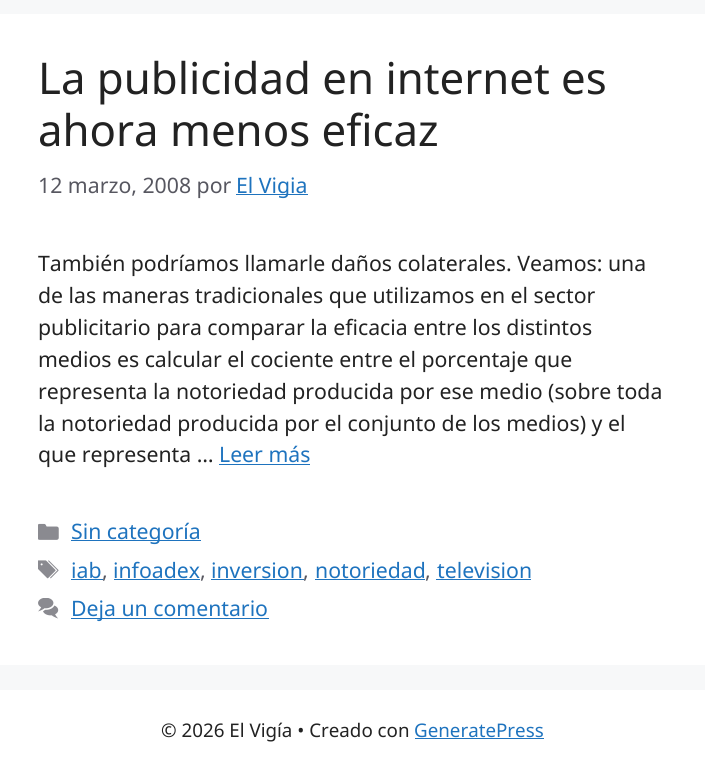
import math
import cairo



def draw_image(context, path, x, y, w, h):
    context.save()
    context.set_source_surface(cairo.ImageSurface.create_from_png(path), x, y)
    context.rectangle(x, y, w, h)
    context.fill()
    context.restore()


def draw(context):
    context.set_source_rgb(247 / 255, 248 / 255, 249 / 255)
    context.paint()
    context.set_source_rgb(1, 1, 1)
    context.rectangle(0, 14, 705, 651)
    context.fill()
    context.set_source_rgb(30 / 255, 115 / 255, 190 / 255)
    context.rectangle(236, 194, 72, 1)
    context.fill()
    context.rectangle(219, 464, 91, 1)
    context.fill()
    draw_image(context, "images/1.png", 38, 523, 21, 17)
    context.rectangle(71, 540, 130, 1)
    context.fill()
    draw_image(context, "images/2.png", 38, 560, 21, 19)
    context.rectangle(71, 579, 32, 1)
    context.fill()
    context.rectangle(114, 579, 86, 1)
    context.fill()
    context.rectangle(211, 579, 93, 1)
    context.fill()
    context.rectangle(315, 579, 110, 1)
    context.fill()
    context.rectangle(436, 579, 95, 1)
    context.fill()
    draw_image(context, "images/3.png", 38, 598, 21, 21)
    context.rectangle(71, 618, 198, 1)
    context.fill()
    context.set_source_rgb(1, 1, 1)
    context.rectangle(0, 690, 705, 78)
    context.fill()
    context.set_source_rgb(30 / 255, 115 / 255, 190 / 255)
    context.rectangle(415, 738, 129, 1)
    context.fill()
    context.select_font_face("Noto Sans")
    context.set_font_size(43.75)
    context.set_source_rgb(34 / 255, 34 / 255, 34 / 255)
    context.move_to(38, 94)
    context.show_text("La publicidad en internet es")
    context.move_to(38, 146)
    context.show_text("ahora menos eficaz")
    context.set_font_size(21.25)
    context.set_source_rgb(87 / 255, 87 / 255, 96 / 255)
    context.move_to(38, 193)
    context.show_text("12 marzo, 2008 por")
    context.set_source_rgb(30 / 255, 115 / 255, 190 / 255)
    context.move_to(236, 193)
    context.show_text("El Vigia")
    context.set_source_rgb(34 / 255, 34 / 255, 34 / 255)
    context.move_to(38, 271)
    context.show_text("También podríamos llamarle daños colaterales. Veamos: una")
    context.move_to(38, 303)
    context.show_text("de las maneras tradicionales que utilizamos en el sector")
    context.move_to(38, 335)
    context.show_text("publicitario para comparar la eficacia entre los distintos")
    context.move_to(38, 367)
    context.show_text("medios es calcular el cociente entre el porcentaje que")
    context.move_to(38, 399)
    context.show_text("representa la notoriedad producida por ese medio (sobre toda")
    context.move_to(38, 431)
    context.show_text("la notoriedad producida por el conjunto de los medios) y el")
    context.move_to(38, 462)
    context.show_text("que representa …")
    context.set_source_rgb(30 / 255, 115 / 255, 190 / 255)
    context.move_to(219, 462)
    context.show_text("Leer más")
    context.move_to(71, 539)
    context.show_text("Sin categoría")
    context.move_to(71, 578)
    context.show_text("iab")
    context.set_source_rgb(87 / 255, 87 / 255, 96 / 255)
    context.move_to(102, 578)
    context.show_text(",")
    context.set_source_rgb(30 / 255, 115 / 255, 190 / 255)
    context.move_to(113, 578)
    context.show_text("infoadex")
    context.set_source_rgb(87 / 255, 87 / 255, 96 / 255)
    context.move_to(200, 578)
    context.show_text(",")
    context.set_source_rgb(30 / 255, 115 / 255, 190 / 255)
    context.move_to(211, 578)
    context.show_text("inversion")
    context.set_source_rgb(87 / 255, 87 / 255, 96 / 255)
    context.move_to(303, 578)
    context.show_text(",")
    context.set_source_rgb(30 / 255, 115 / 255, 190 / 255)
    context.move_to(315, 578)
    context.show_text("notoriedad")
    context.set_source_rgb(87 / 255, 87 / 255, 96 / 255)
    context.move_to(425, 578)
    context.show_text(",")
    context.set_source_rgb(30 / 255, 115 / 255, 190 / 255)
    context.move_to(437, 578)
    context.show_text("television")
    context.move_to(71, 616)
    context.show_text("Deja un comentario")
    context.set_font_size(18.75)
    context.set_source_rgb(34 / 255, 34 / 255, 34 / 255)
    context.move_to(161, 737)
    context.show_text("© 2026 El Vigía • Creado con")
    context.set_source_rgb(30 / 255, 115 / 255, 190 / 255)
    context.move_to(414, 737)
    context.show_text("GeneratePress")


surface = cairo.ImageSurface(cairo.Format.RGB24, 705, 768)
context = cairo.Context(surface)
options = cairo.FontOptions()
options.set_hint_metrics(cairo.HintMetrics.OFF)
options.set_hint_style(cairo.HintStyle.NONE)
context.set_font_options(options)
context.set_miter_limit(4)
draw(context)
surface.write_to_png("out.png")
